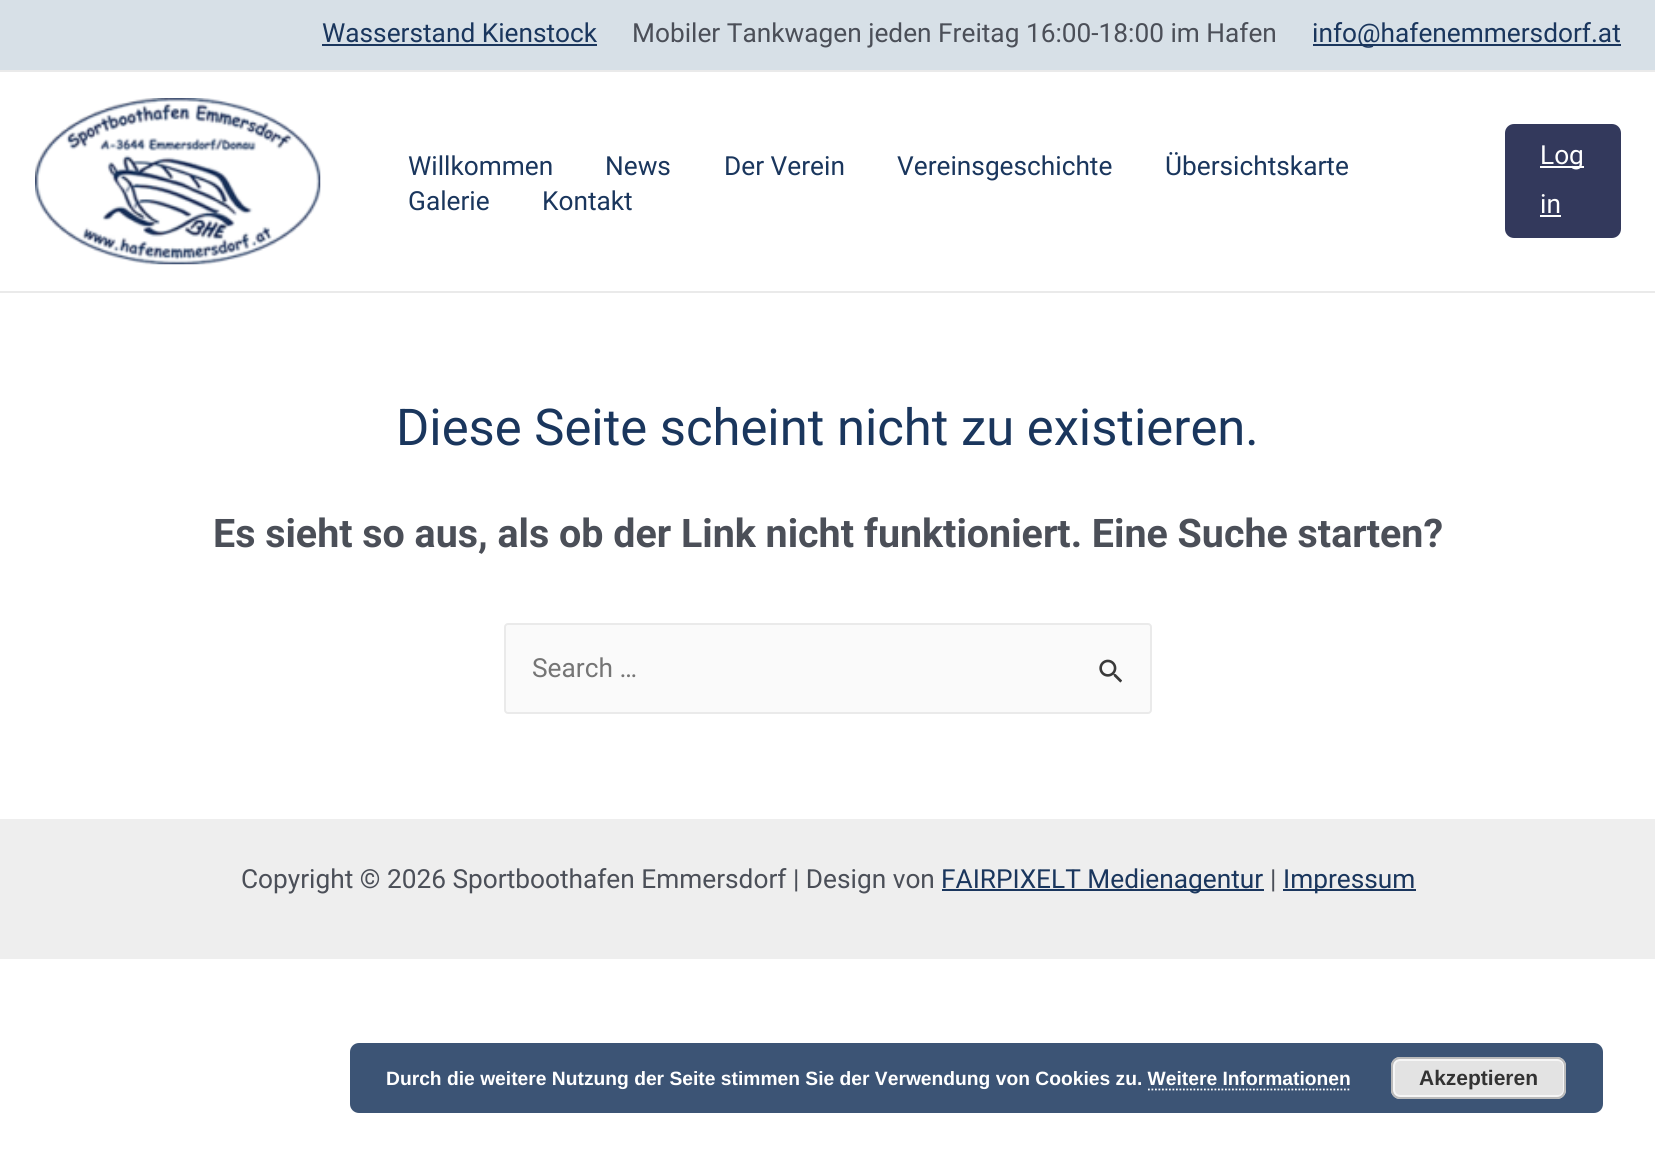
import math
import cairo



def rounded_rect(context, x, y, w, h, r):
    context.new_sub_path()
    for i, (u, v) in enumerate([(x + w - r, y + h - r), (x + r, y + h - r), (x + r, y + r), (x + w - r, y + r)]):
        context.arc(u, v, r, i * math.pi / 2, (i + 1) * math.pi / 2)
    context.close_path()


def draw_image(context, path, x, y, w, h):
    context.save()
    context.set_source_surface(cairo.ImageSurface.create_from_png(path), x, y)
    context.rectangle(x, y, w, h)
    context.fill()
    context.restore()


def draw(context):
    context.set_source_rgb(1, 1, 1)
    context.paint()
    context.set_source_rgb(215 / 255, 224 / 255, 231 / 255)
    context.rectangle(0, 0, 1655, 70)
    context.fill()
    context.set_source_rgb(234 / 255, 234 / 255, 234 / 255)
    context.rectangle(0, 70, 1655, 2)
    context.fill()
    context.set_source_rgb(26 / 255, 54 / 255, 93 / 255)
    context.rectangle(322, 44, 275, 2)
    context.fill()
    context.rectangle(1313, 44, 308, 2)
    context.fill()
    context.set_source_rgb(234 / 255, 234 / 255, 234 / 255)
    context.rectangle(0, 291, 1655, 2)
    context.fill()
    draw_image(context, "images/1.png", 35, 98, 286, 167)
    context.set_source_rgb(51 / 255, 57 / 255, 92 / 255)
    rounded_rect(context, 1505, 124, 116, 114, 9)
    context.fill()
    context.set_source_rgb(1, 1, 1)
    context.rectangle(1540, 166, 44, 2)
    context.fill()
    context.rectangle(1540, 215, 21, 2)
    context.fill()
    context.set_source_rgb(250 / 255, 250 / 255, 250 / 255)
    rounded_rect(context, 505, 624, 646, 89, 3)
    context.fill_preserve()
    context.set_source_rgb(234 / 255, 234 / 255, 234 / 255)
    context.stroke()
    draw_image(context, "images/2.png", 1099, 659, 23, 24)
    context.set_source_rgb(238 / 255, 238 / 255, 238 / 255)
    context.rectangle(0, 819, 1655, 140)
    context.fill()
    context.set_source_rgb(26 / 255, 54 / 255, 93 / 255)
    context.rectangle(942, 889, 322, 2)
    context.fill()
    context.rectangle(1283, 889, 133, 2)
    context.fill()
    context.set_source_rgb(60 / 255, 84 / 255, 117 / 255)
    rounded_rect(context, 350, 1043, 1253, 70, 9)
    context.fill()
    context.set_source_rgb(227 / 255, 227 / 255, 227 / 255)
    rounded_rect(context, 1391, 1057, 175, 42, 9)
    context.fill()
    rounded_rect(context, 1394, 1060, 170, 36, 6)
    context.set_source_rgb(246 / 255, 246 / 255, 246 / 255)
    context.stroke()
    rounded_rect(context, 1392, 1058, 173, 40, 8)
    context.set_source_rgb(187 / 255, 187 / 255, 187 / 255)
    context.stroke()
    context.new_path()
    context.move_to(1148, 1089.5)
    context.line_to(1351, 1089.5)
    context.set_source_rgb(1, 1, 1)
    context.set_line_width(1.8)
    context.set_dash([1.75, 1.75])
    context.stroke()
    context.select_font_face("Roboto")
    context.set_font_size(26.25)
    context.set_source_rgb(26 / 255, 54 / 255, 93 / 255)
    context.move_to(322, 42)
    context.show_text("Wasserstand Kienstock")
    context.set_source_rgb(75 / 255, 79 / 255, 88 / 255)
    context.move_to(632, 42)
    context.show_text("Mobiler Tankwagen jeden Freitag 16:00-18:00 im Hafen")
    context.set_source_rgb(26 / 255, 54 / 255, 93 / 255)
    context.move_to(1312, 42)
    context.show_text("info@hafenemmersdorf.at")
    context.move_to(408, 175)
    context.show_text("Willkommen")
    context.move_to(605, 175)
    context.show_text("News")
    context.move_to(724, 175)
    context.show_text("Der Verein")
    context.move_to(897, 175)
    context.show_text("Vereinsgeschichte")
    context.move_to(1165, 175)
    context.show_text("Übersichtskarte")
    context.move_to(408, 210)
    context.show_text("Galerie")
    context.move_to(542, 210)
    context.show_text("Kontakt")
    context.set_source_rgb(1, 1, 1)
    context.move_to(1540, 164)
    context.show_text("Log")
    context.move_to(1540, 213)
    context.show_text("in")
    context.set_font_size(50.75)
    context.set_source_rgb(26 / 255, 54 / 255, 93 / 255)
    context.move_to(396, 445)
    context.show_text("Diese Seite scheint nicht zu existieren.")
    context.select_font_face("Roboto", cairo.FontSlant.NORMAL, cairo.FontWeight.BOLD)
    context.set_font_size(39.4)
    context.set_source_rgb(75 / 255, 79 / 255, 88 / 255)
    context.move_to(213, 547)
    context.show_text("Es sieht so aus, als ob der Link nicht funktioniert. Eine Suche starten?")
    context.select_font_face("Roboto")
    context.set_font_size(26.25)
    context.set_source_rgb(117 / 255, 117 / 255, 117 / 255)
    context.move_to(532, 677)
    context.show_text("Search …")
    context.set_source_rgb(75 / 255, 79 / 255, 88 / 255)
    context.move_to(241, 888)
    context.show_text("Copyright © 2026 Sportboothafen Emmersdorf | Design von")
    context.set_source_rgb(26 / 255, 54 / 255, 93 / 255)
    context.move_to(941, 888)
    context.show_text("FAIRPIXELT Medienagentur")
    context.set_source_rgb(75 / 255, 79 / 255, 88 / 255)
    context.move_to(1270, 888)
    context.show_text("|")
    context.set_source_rgb(26 / 255, 54 / 255, 93 / 255)
    context.move_to(1283, 888)
    context.show_text("Impressum")
    context.select_font_face("Liberation Sans", cairo.FontSlant.NORMAL, cairo.FontWeight.BOLD)
    context.set_font_size(19.25)
    context.set_source_rgb(1, 1, 1)
    context.move_to(386, 1085)
    context.show_text("Durch die weitere Nutzung der Seite stimmen Sie der Verwendung von Cookies zu. Weitere Informationen")
    context.set_font_size(21)
    context.set_source_rgb(51 / 255, 51 / 255, 51 / 255)
    context.move_to(1419, 1085)
    context.show_text("Akzeptieren")


surface = cairo.ImageSurface(cairo.Format.RGB24, 1655, 1165)
context = cairo.Context(surface)
options = cairo.FontOptions()
options.set_hint_metrics(cairo.HintMetrics.OFF)
options.set_hint_style(cairo.HintStyle.NONE)
context.set_font_options(options)
context.set_miter_limit(4)
draw(context)
surface.write_to_png("out.png")
